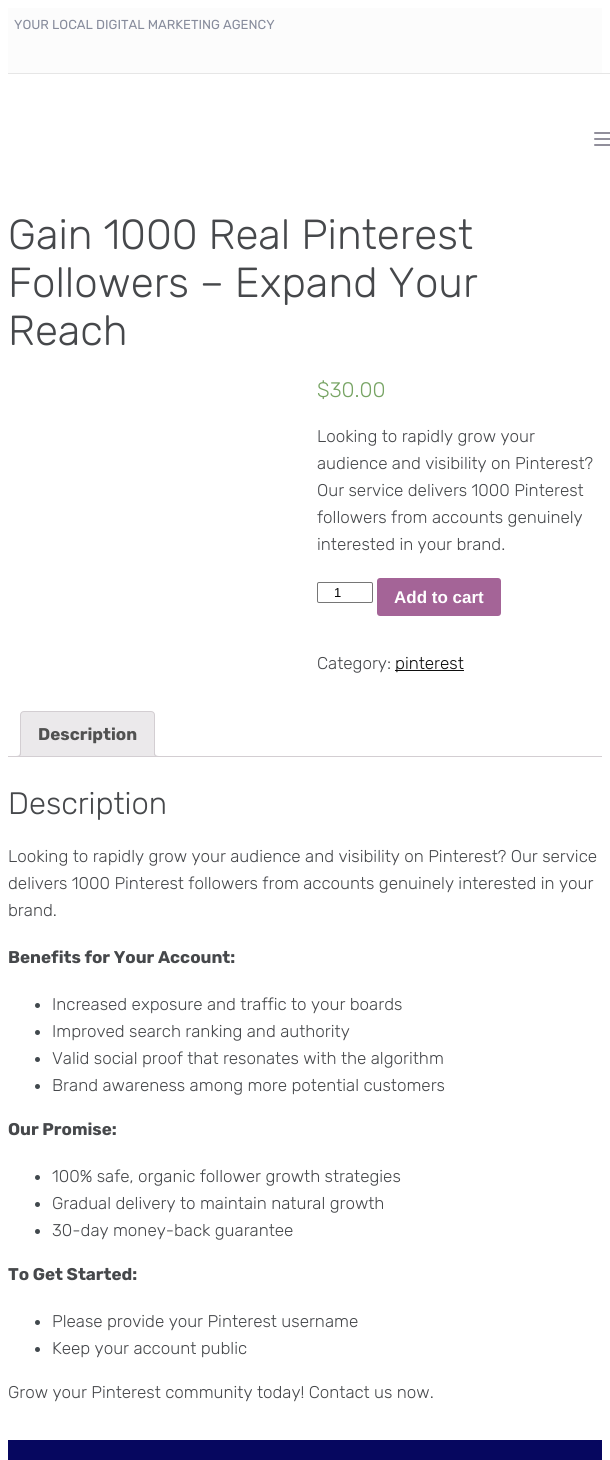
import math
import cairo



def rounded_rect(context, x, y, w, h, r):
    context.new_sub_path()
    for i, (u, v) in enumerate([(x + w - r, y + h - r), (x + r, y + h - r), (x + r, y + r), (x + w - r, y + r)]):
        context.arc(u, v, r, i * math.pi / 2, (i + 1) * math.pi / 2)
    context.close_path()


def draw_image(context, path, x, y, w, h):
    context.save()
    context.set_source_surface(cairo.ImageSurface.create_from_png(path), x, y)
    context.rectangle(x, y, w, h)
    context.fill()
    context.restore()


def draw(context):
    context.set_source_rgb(1, 1, 1)
    context.paint()
    context.set_source_rgb(252 / 255, 252 / 255, 252 / 255)
    context.rectangle(8, 8, 594, 65)
    context.fill()
    context.set_source_rgb(230 / 255, 230 / 255, 230 / 255)
    context.rectangle(8, 73, 602, 1)
    context.fill()
    draw_image(context, "images/1.png", 594, 132, 16, 14)
    rounded_rect(context, 317.5, 582.5, 55, 20, 1.5)
    context.set_source_rgb(118 / 255, 118 / 255, 118 / 255)
    context.set_line_width(1)
    context.stroke()
    context.set_source_rgb(164 / 255, 100 / 255, 151 / 255)
    rounded_rect(context, 377, 578, 124, 38, 3)
    context.fill()
    context.set_source_rgb(14 / 255, 14 / 255, 14 / 255)
    context.rectangle(395, 670, 69, 1)
    context.fill()
    context.set_source_rgb(235 / 255, 233 / 255, 235 / 255)
    context.new_path()
    context.move_to(24, 711.5)
    context.line_to(151, 711.5)
    context.curve_to(153, 711.5, 154.5, 713, 154.5, 715)
    context.line_to(154.5, 756.5)
    context.line_to(20.5, 756.5)
    context.line_to(20.5, 715)
    context.curve_to(20.5, 713, 22, 711.5, 24, 711.5)
    context.close_path()
    context.fill_preserve()
    context.set_source_rgb(211 / 255, 206 / 255, 210 / 255)
    context.stroke()
    context.save()
    context.rectangle(8, 711, 594, 46)
    context.clip()
    context.set_source_rgb(235 / 255, 233 / 255, 235 / 255)
    context.new_path()
    context.move_to(18, 757)
    context.line_to(18, 759)
    context.curve_to(21.5, 759, 23, 757.5, 23, 754)
    context.line_to(21, 754)
    context.curve_to(20.5, 755.5, 19.5, 756.5, 18, 757)
    context.close_path()
    context.fill()
    context.restore()
    context.set_fill_rule(cairo.FillRule.EVEN_ODD)
    context.new_path()
    context.move_to(16, 752)
    context.line_to(21, 752)
    context.curve_to(21, 755.5, 19.5, 757, 16, 757)
    context.close_path()
    context.move_to(16, 752)
    context.line_to(20, 752)
    context.curve_to(20, 755, 19, 756, 16, 756)
    context.close_path()
    context.fill()
    context.save()
    context.set_fill_rule(cairo.FillRule.WINDING)
    context.rectangle(8, 711, 594, 46)
    context.clip()
    context.set_source_rgb(235 / 255, 233 / 255, 235 / 255)
    context.new_path()
    context.move_to(152, 754)
    context.curve_to(152, 757.5, 153.5, 759, 157, 759)
    context.line_to(157, 757)
    context.curve_to(155.5, 756.5, 154.5, 755.5, 154, 754)
    context.close_path()
    context.fill()
    context.restore()
    context.new_path()
    context.move_to(154, 752)
    context.line_to(159, 752)
    context.line_to(159, 757)
    context.curve_to(156.5, 757, 154, 756, 154, 753)
    context.close_path()
    context.move_to(155, 752)
    context.line_to(159, 752)
    context.line_to(159, 756)
    context.curve_to(157, 756, 155, 755.5, 155, 753)
    context.close_path()
    context.fill()
    context.rectangle(8, 756, 594, 1)
    context.fill()
    context.set_source_rgb(65 / 255, 72 / 255, 77 / 255)
    context.arc(37.5, 1005.5, 2.5, 0, 2 * math.pi)
    context.fill()
    context.arc(37.5, 1032.5, 2.5, 0, 2 * math.pi)
    context.fill()
    context.arc(37.5, 1059.5, 2.5, 0, 2 * math.pi)
    context.fill()
    context.arc(37.5, 1086.5, 2.5, 0, 2 * math.pi)
    context.fill()
    context.arc(37.5, 1177.5, 2.5, 0, 2 * math.pi)
    context.fill()
    context.arc(37.5, 1204.5, 2.5, 0, 2 * math.pi)
    context.fill()
    context.arc(37.5, 1231.5, 2.5, 0, 2 * math.pi)
    context.fill()
    context.arc(37.5, 1322.5, 2.5, 0, 2 * math.pi)
    context.fill()
    context.arc(37.5, 1349.5, 2.5, 0, 2 * math.pi)
    context.fill()
    context.set_source_rgb(6 / 255, 7 / 255, 95 / 255)
    context.rectangle(8, 1440, 594, 20)
    context.fill()
    context.select_font_face("Rubik")
    context.set_font_size(13)
    context.set_source_rgb(135 / 255, 140 / 255, 156 / 255)
    context.move_to(14, 29)
    context.show_text("YOUR LOCAL DIGITAL MARKETING AGENCY")
    context.select_font_face("Rubik Light")
    context.set_font_size(42)
    context.set_source_rgb(70 / 255, 72 / 255, 75 / 255)
    context.move_to(8, 249)
    context.show_text("Gain 1000 Real Pinterest")
    context.move_to(8, 297)
    context.show_text("Followers – Expand Your")
    context.move_to(8, 345)
    context.show_text("Reach")
    context.set_font_size(21)
    context.set_source_rgb(119 / 255, 164 / 255, 100 / 255)
    context.move_to(317, 397)
    context.show_text("$30.00")
    context.set_font_size(17)
    context.set_source_rgb(70 / 255, 72 / 255, 75 / 255)
    context.move_to(317, 442)
    context.show_text("Looking to rapidly grow your")
    context.move_to(317, 469)
    context.show_text("audience and visibility on Pinterest?")
    context.move_to(317, 496)
    context.show_text("Our service delivers 1000 Pinterest")
    context.move_to(317, 523)
    context.show_text("followers from accounts genuinely")
    context.move_to(317, 550)
    context.show_text("interested in your brand.")
    context.select_font_face("Liberation Sans")
    context.set_font_size(13)
    context.set_source_rgb(0, 0, 0)
    context.move_to(334, 597)
    context.show_text("1")
    context.select_font_face("Liberation Sans", cairo.FontSlant.NORMAL, cairo.FontWeight.BOLD)
    context.set_font_size(17)
    context.set_source_rgb(1, 1, 1)
    context.move_to(394, 603)
    context.show_text("Add to cart")
    context.select_font_face("Rubik Light")
    context.set_source_rgb(70 / 255, 72 / 255, 75 / 255)
    context.move_to(317, 669)
    context.show_text("Category:")
    context.set_source_rgb(14 / 255, 14 / 255, 14 / 255)
    context.move_to(395, 669)
    context.show_text("pinterest")
    context.select_font_face("Rubik", cairo.FontSlant.NORMAL, cairo.FontWeight.BOLD)
    context.set_source_rgb(81 / 255, 81 / 255, 81 / 255)
    context.move_to(38, 740)
    context.show_text("Description")
    context.select_font_face("Rubik Light")
    context.set_font_size(31)
    context.set_source_rgb(70 / 255, 72 / 255, 75 / 255)
    context.move_to(8, 814)
    context.show_text("Description")
    context.set_font_size(17)
    context.move_to(8, 862)
    context.show_text("Looking to rapidly grow your audience and visibility on Pinterest? Our service")
    context.move_to(8, 889)
    context.show_text("delivers 1000 Pinterest followers from accounts genuinely interested in your")
    context.move_to(8, 916)
    context.show_text("brand.")
    context.select_font_face("Rubik", cairo.FontSlant.NORMAL, cairo.FontWeight.BOLD)
    context.move_to(8, 963)
    context.show_text("Benefits for Your Account:")
    context.select_font_face("Rubik Light")
    context.move_to(52, 1010)
    context.show_text("Increased exposure and traffic to your boards")
    context.move_to(52, 1037)
    context.show_text("Improved search ranking and authority")
    context.move_to(52, 1064)
    context.show_text("Valid social proof that resonates with the algorithm")
    context.move_to(52, 1091)
    context.show_text("Brand awareness among more potential customers")
    context.select_font_face("Rubik", cairo.FontSlant.NORMAL, cairo.FontWeight.BOLD)
    context.move_to(8, 1135)
    context.show_text("Our Promise:")
    context.select_font_face("Rubik Light")
    context.move_to(52, 1182)
    context.show_text("100% safe, organic follower growth strategies")
    context.move_to(52, 1209)
    context.show_text("Gradual delivery to maintain natural growth")
    context.move_to(52, 1236)
    context.show_text("30-day money-back guarantee")
    context.select_font_face("Rubik", cairo.FontSlant.NORMAL, cairo.FontWeight.BOLD)
    context.move_to(8, 1280)
    context.show_text("To Get Started:")
    context.select_font_face("Rubik Light")
    context.move_to(52, 1327)
    context.show_text("Please provide your Pinterest username")
    context.move_to(52, 1354)
    context.show_text("Keep your account public")
    context.move_to(8, 1398)
    context.show_text("Grow your Pinterest community today! Contact us now.")


surface = cairo.ImageSurface(cairo.Format.RGB24, 610, 1460)
context = cairo.Context(surface)
options = cairo.FontOptions()
options.set_hint_metrics(cairo.HintMetrics.OFF)
options.set_hint_style(cairo.HintStyle.NONE)
context.set_font_options(options)
context.set_miter_limit(4)
draw(context)
surface.write_to_png("out.png")
